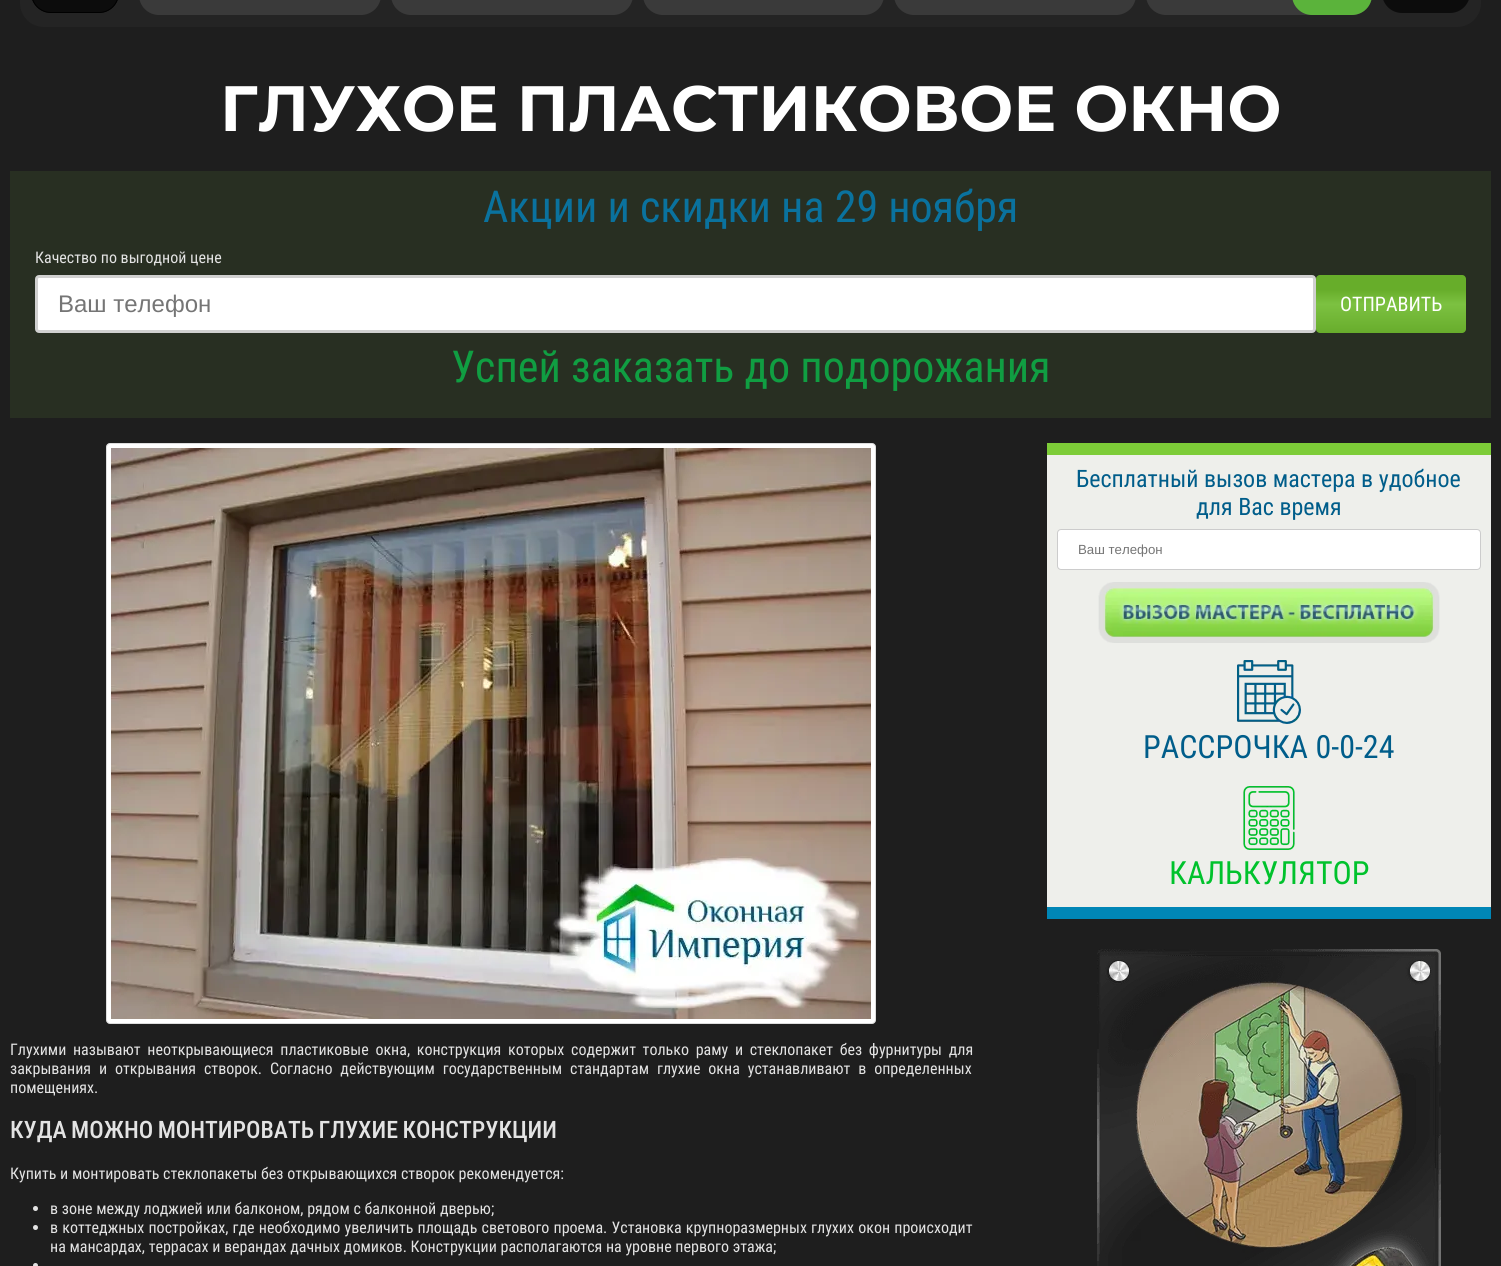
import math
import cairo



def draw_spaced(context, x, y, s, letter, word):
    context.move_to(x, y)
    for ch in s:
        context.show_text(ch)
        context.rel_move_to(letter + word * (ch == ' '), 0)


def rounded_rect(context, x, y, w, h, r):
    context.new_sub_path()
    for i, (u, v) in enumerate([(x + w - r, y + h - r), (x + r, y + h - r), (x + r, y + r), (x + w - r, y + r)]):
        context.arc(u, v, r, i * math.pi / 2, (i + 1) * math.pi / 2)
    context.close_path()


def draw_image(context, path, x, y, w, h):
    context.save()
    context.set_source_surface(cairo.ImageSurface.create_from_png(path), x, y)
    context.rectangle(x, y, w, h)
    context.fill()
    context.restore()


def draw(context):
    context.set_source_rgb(30 / 255, 30 / 255, 30 / 255)
    context.paint()
    context.set_source_rgb(36 / 255, 36 / 255, 36 / 255)
    rounded_rect(context, 20, -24, 1461, 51, 24)
    context.fill()
    draw_image(context, "images/1.png", 32, 0, 86, 13)
    context.set_source_rgb(58 / 255, 58 / 255, 58 / 255)
    rounded_rect(context, 139, -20, 242, 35, 20)
    context.fill()
    rounded_rect(context, 391, -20, 242, 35, 20)
    context.fill()
    rounded_rect(context, 643, -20, 241, 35, 20)
    context.fill()
    rounded_rect(context, 894, -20, 242, 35, 20)
    context.fill()
    rounded_rect(context, 1146, -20, 226, 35, 20)
    context.fill()
    draw_image(context, "images/2.png", 1292, 0, 80, 15)
    context.set_source_rgb(12 / 255, 12 / 255, 12 / 255)
    rounded_rect(context, 1382, -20, 88, 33, 20)
    context.fill()
    context.set_source_rgb(40 / 255, 47 / 255, 34 / 255)
    context.rectangle(10, 171, 1481, 247)
    context.fill()
    context.set_source_rgb(1, 1, 1)
    rounded_rect(context, 36.5, 276.5, 1278, 55, 2.5)
    context.fill_preserve()
    context.set_source_rgb(208 / 255, 208 / 255, 208 / 255)
    context.set_line_width(3)
    context.stroke()
    gradient = cairo.LinearGradient(1391, 333, 1391, 275)
    gradient.add_color_stop_rgba(0, 104 / 255, 173 / 255, 44 / 255, 1)
    gradient.add_color_stop_rgba(0.5, 124 / 255, 193 / 255, 65 / 255, 1)
    gradient.add_color_stop_rgba(0.75, 103 / 255, 173 / 255, 42 / 255, 1)
    context.set_source(gradient)
    rounded_rect(context, 1316, 275, 150, 58, 4)
    context.fill()
    context.set_source_rgb(238 / 255, 239 / 255, 235 / 255)
    context.rectangle(1047, 455, 444, 452)
    context.fill()
    context.set_source_rgb(125 / 255, 204 / 255, 56 / 255)
    context.rectangle(1047, 443, 444, 12)
    context.fill()
    context.set_source_rgb(0, 134 / 255, 182 / 255)
    context.rectangle(1047, 907, 444, 12)
    context.fill()
    context.set_source_rgb(1, 1, 1)
    rounded_rect(context, 1057.5, 529.5, 423, 40, 3.5)
    context.fill_preserve()
    context.set_source_rgb(204 / 255, 204 / 255, 204 / 255)
    context.set_line_width(1)
    context.stroke()
    draw_image(context, "images/3.png", 1098, 582, 342, 61)
    draw_image(context, "images/4.png", 1237, 660, 64, 64)
    draw_image(context, "images/5.png", 1243, 786, 52, 64)
    draw_image(context, "images/6.png", 1097, 949, 344, 317)
    context.set_source_rgb(1, 1, 1)
    rounded_rect(context, 106.5, 443.5, 769, 580, 3.5)
    context.fill_preserve()
    context.set_source_rgb(221 / 255, 221 / 255, 221 / 255)
    context.stroke()
    draw_image(context, "images/7.png", 111, 448, 760, 571)
    context.set_source_rgb(227 / 255, 227 / 255, 227 / 255)
    context.arc(35.5, 1208.5, 2.5, 0, 2 * math.pi)
    context.fill()
    context.arc(35.5, 1227.5, 2.5, 0, 2 * math.pi)
    context.fill()
    context.arc(35.5, 1265.5, 2.5, 0, 2 * math.pi)
    context.fill()
    context.select_font_face("Montserrat", cairo.FontSlant.NORMAL, cairo.FontWeight.BOLD)
    context.set_font_size(64)
    context.set_source_rgb(1, 1, 1)
    context.move_to(220, 131)
    context.show_text("ГЛУХОЕ ПЛАСТИКОВОЕ ОКНО")
    context.select_font_face("Roboto Condensed")
    context.set_font_size(44)
    context.set_source_rgb(10 / 255, 114 / 255, 158 / 255)
    context.move_to(483, 222)
    context.show_text("Акции и скидки на 29 ноября")
    context.set_font_size(16)
    context.set_source_rgb(227 / 255, 227 / 255, 227 / 255)
    context.move_to(35, 263)
    context.show_text("Качество по выгодной цене")
    context.select_font_face("Liberation Sans")
    context.set_font_size(24)
    context.set_source_rgb(117 / 255, 117 / 255, 117 / 255)
    context.move_to(58, 312)
    context.show_text("Ваш телефон")
    context.select_font_face("Roboto Condensed")
    context.set_font_size(20)
    context.set_source_rgb(1, 1, 1)
    context.move_to(1340, 311)
    context.show_text("ОТПРАВИТЬ")
    context.set_font_size(44)
    context.set_source_rgb(16 / 255, 158 / 255, 66 / 255)
    context.move_to(451, 382)
    context.show_text("Успей заказать до подорожания")
    context.set_font_size(24)
    context.set_source_rgb(0, 93 / 255, 138 / 255)
    context.move_to(1076, 487)
    context.show_text("Бесплатный вызов мастера в удобное")
    context.move_to(1196, 515)
    context.show_text("для Вас время")
    context.select_font_face("Liberation Sans")
    context.set_font_size(13.25)
    context.set_source_rgb(117 / 255, 117 / 255, 117 / 255)
    context.move_to(1078, 554)
    context.show_text("Ваш телефон")
    context.select_font_face("Roboto Condensed")
    context.set_font_size(32)
    context.set_source_rgb(0, 93 / 255, 138 / 255)
    context.move_to(1143, 758)
    context.show_text("РАССРОЧКА 0-0-24")
    context.set_source_rgb(0, 194 / 255, 44 / 255)
    context.move_to(1169, 884)
    context.show_text("КАЛЬКУЛЯТОР")
    context.set_font_size(16)
    context.set_source_rgb(227 / 255, 227 / 255, 227 / 255)
    draw_spaced(context, 10, 1055, "Глухими называют неоткрывающиеся пластиковые окна, конструкция которых содержит только раму и стеклопакет без фурнитуры для", 0, 3)
    draw_spaced(context, 10, 1074, "закрывания и открывания створок. Согласно действующим государственным стандартам глухие окна устанавливают в определенных", 0, 4.25)
    context.move_to(10, 1093)
    context.show_text("помещениях.")
    context.select_font_face("Roboto Condensed Medium")
    context.set_font_size(24)
    draw_spaced(context, 10, 1138, "КУДА МОЖНО МОНТИРОВАТЬ ГЛУХИЕ КОНСТРУКЦИИ", 0, -1)
    context.select_font_face("Roboto Condensed")
    context.set_font_size(16)
    context.move_to(10, 1179)
    context.show_text("Купить и монтировать стеклопакеты без открывающихся створок рекомендуется:")
    context.move_to(50, 1214)
    context.show_text("в зоне между лоджией или балконом, рядом с балконной дверью;")
    draw_spaced(context, 50, 1233, "в коттеджных постройках, где необходимо увеличить площадь светового проема. Установка крупноразмерных глухих окон происходит", 0, 0.5)
    context.move_to(50, 1252)
    context.show_text("на мансардах, террасах и верандах дачных домиков. Конструкции располагаются на уровне первого этажа;")


surface = cairo.ImageSurface(cairo.Format.RGB24, 1501, 1266)
context = cairo.Context(surface)
options = cairo.FontOptions()
options.set_hint_metrics(cairo.HintMetrics.OFF)
options.set_hint_style(cairo.HintStyle.NONE)
context.set_font_options(options)
context.set_miter_limit(4)
draw(context)
surface.write_to_png("out.png")
